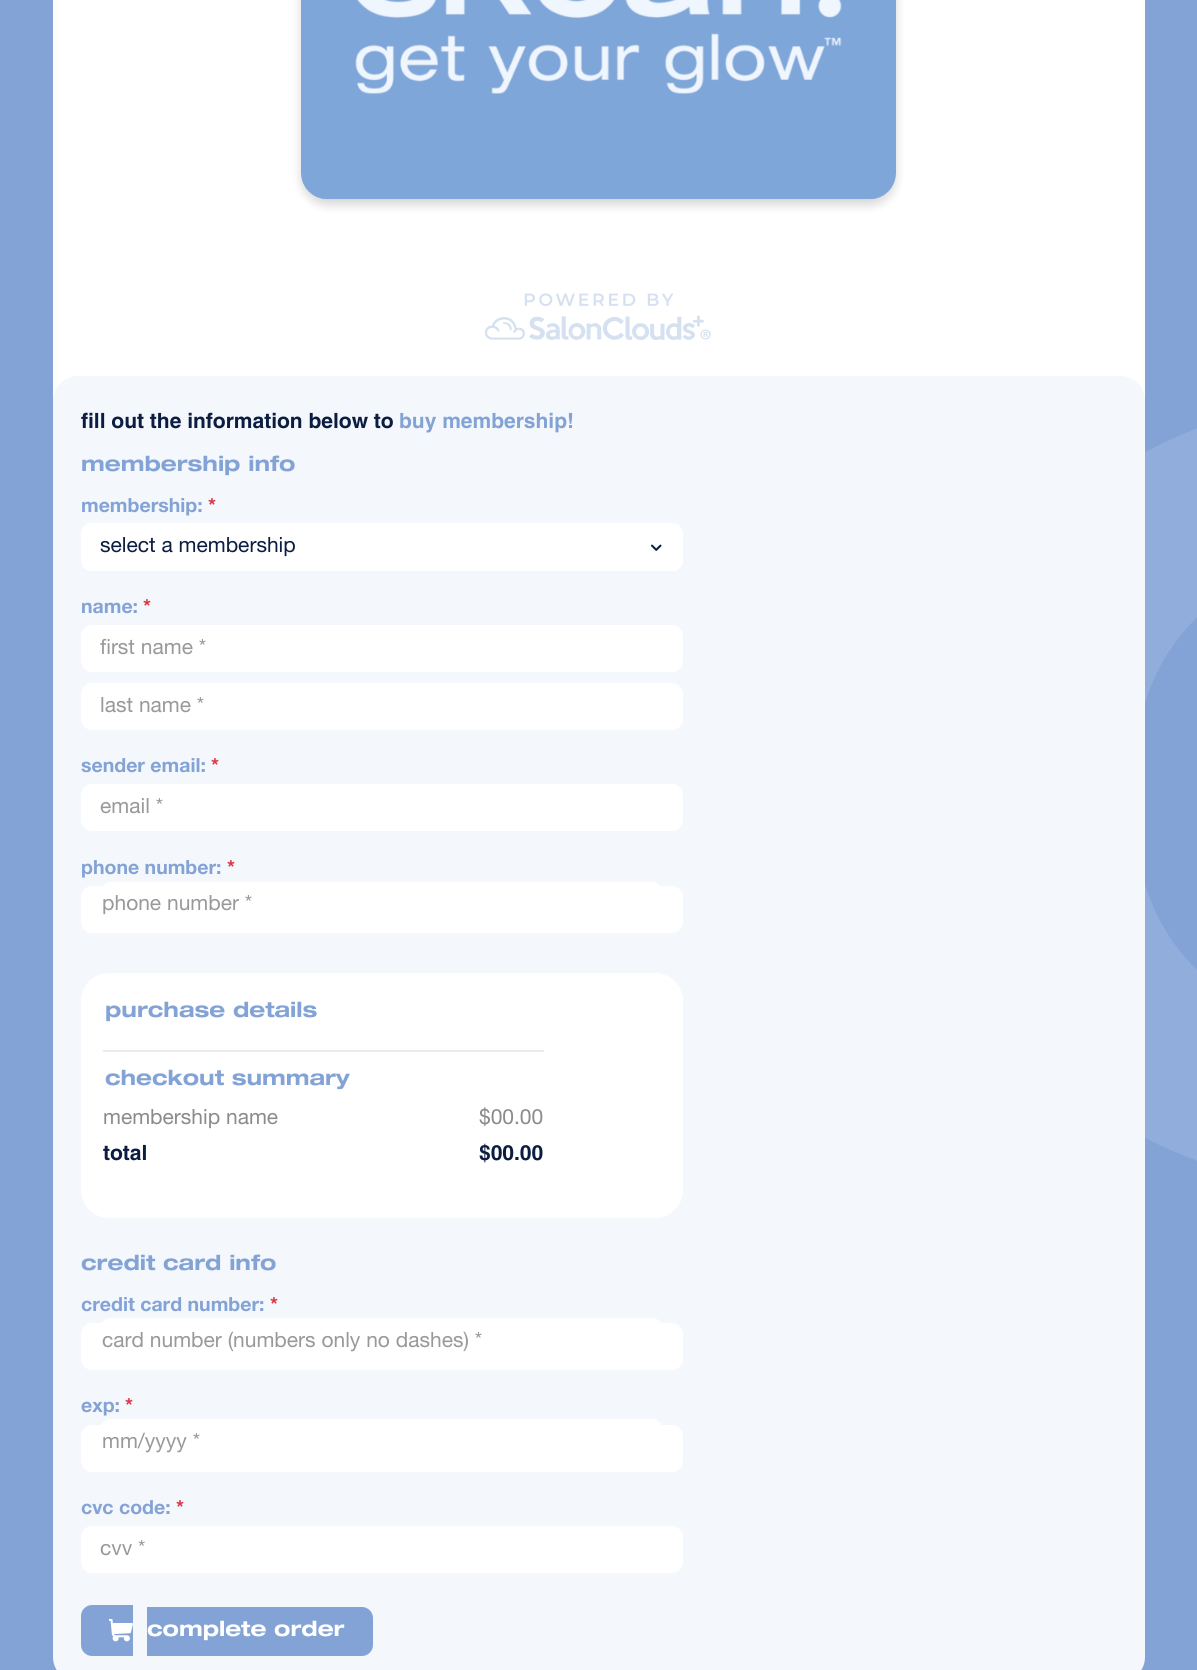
import math
import cairo



def rounded_rect(context, x, y, w, h, r):
    context.new_sub_path()
    for i, (u, v) in enumerate([(x + w - r, y + h - r), (x + r, y + h - r), (x + r, y + r), (x + w - r, y + r)]):
        context.arc(u, v, r, i * math.pi / 2, (i + 1) * math.pi / 2)
    context.close_path()


def draw_shadow(context, x, y, w, h, r, blur, alpha):
    context.push_group_with_content(cairo.Content.ALPHA)
    context.set_operator(cairo.Operator.SOURCE)
    for i in range(15, -16, -2):
        e = blur * i / 6
        if min(w, h) + 2 * e > 0:
            context.set_source_rgba(0, 0, 0, alpha * math.erfc((i - 1) / 8.5) / 2)
            rounded_rect(context, x - e, y - e, w + 2 * e, h + 2 * e, max(0, min(r + e + blur * .6, min(w, h) / 2 + e)))
            context.fill()
    context.mask(context.pop_group())


def draw_image(context, path, x, y, w, h):
    context.save()
    context.set_source_surface(cairo.ImageSurface.create_from_png(path), x, y)
    context.rectangle(x, y, w, h)
    context.fill()
    context.restore()


def draw(context):
    context.set_source_rgb(131 / 255, 163 / 255, 214 / 255)
    context.paint()
    draw_image(context, "images/1.png", 1145, 428, 52, 733)
    context.set_source_rgb(1, 1, 1)
    rounded_rect(context, 53, -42, 1092, 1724, 42)
    context.fill()
    context.set_source_rgb(0, 0, 0)
    draw_shadow(context, 301, -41, 595, 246, 26, 5, 0.16)
    draw_image(context, "images/2.png", 301, 0, 595, 200)
    draw_image(context, "images/3.png", 485, 293, 226, 47)
    context.set_source_rgb(244 / 255, 247 / 255, 251 / 255)
    rounded_rect(context, 53, 376, 1092, 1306, 25)
    context.fill()
    context.set_source_rgb(1, 1, 1)
    rounded_rect(context, 81, 523, 602, 48, 11)
    context.fill()
    draw_image(context, "images/4.png", 651, 544, 11, 7)
    rounded_rect(context, 82, 524, 600, 46, 10)
    context.stroke()
    rounded_rect(context, 82, 626, 600, 45, 10)
    context.fill_preserve()
    context.stroke()
    rounded_rect(context, 82, 684, 600, 45, 10)
    context.fill_preserve()
    context.stroke()
    rounded_rect(context, 82, 785, 600, 45, 10)
    context.fill_preserve()
    context.stroke()
    rounded_rect(context, 82, 887, 600, 45, 10)
    context.fill_preserve()
    context.stroke()
    rounded_rect(context, 101, 883, 561, 45, 10)
    context.fill_preserve()
    context.stroke()
    rounded_rect(context, 81, 973, 602, 245, 28)
    context.fill()
    context.set_source_rgb(235 / 255, 235 / 255, 233 / 255)
    context.rectangle(103, 1050, 441, 2)
    context.fill()
    context.set_source_rgb(1, 1, 1)
    rounded_rect(context, 82, 1324, 600, 45, 10)
    context.fill_preserve()
    context.stroke()
    rounded_rect(context, 101, 1319, 561, 45, 10)
    context.fill_preserve()
    context.stroke()
    rounded_rect(context, 82, 1426, 600, 45, 10)
    context.fill_preserve()
    context.stroke()
    rounded_rect(context, 101, 1420, 561, 46, 10)
    context.fill_preserve()
    context.stroke()
    rounded_rect(context, 82, 1527, 600, 45, 10)
    context.fill_preserve()
    context.stroke()
    context.set_source_rgb(131 / 255, 163 / 255, 214 / 255)
    context.new_path()
    context.move_to(92, 1605)
    context.line_to(133, 1605)
    context.line_to(133, 1656)
    context.line_to(92, 1656)
    context.curve_to(86, 1656, 81, 1651, 81, 1645)
    context.line_to(81, 1616)
    context.curve_to(81, 1610, 86, 1605, 92, 1605)
    context.close_path()
    context.fill()
    draw_image(context, "images/5.png", 109, 1619, 24, 23)
    context.new_path()
    context.move_to(147, 1607)
    context.line_to(362, 1607)
    context.curve_to(368, 1607, 373, 1612, 373, 1618)
    context.line_to(373, 1645)
    context.curve_to(373, 1651, 368, 1656, 362, 1656)
    context.line_to(147, 1656)
    context.close_path()
    context.fill()
    context.select_font_face("Helvetica", cairo.FontSlant.NORMAL, cairo.FontWeight.BOLD)
    context.set_font_size(21)
    context.set_source_rgb(11 / 255, 29 / 255, 64 / 255)
    context.move_to(81, 428)
    context.show_text("fill out the information below to")
    context.set_source_rgb(131 / 255, 163 / 255, 214 / 255)
    context.move_to(399, 428)
    context.show_text("buy membership!")
    context.select_font_face("Helvetica Neue", cairo.FontSlant.NORMAL, cairo.FontWeight.BOLD)
    context.move_to(81, 471)
    context.show_text("membership info")
    context.select_font_face("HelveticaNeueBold", cairo.FontSlant.NORMAL, cairo.FontWeight.BOLD)
    context.set_font_size(19.5)
    context.move_to(81, 512)
    context.show_text("membership:")
    context.set_source_rgb(220 / 255, 53 / 255, 69 / 255)
    context.move_to(208, 512)
    context.show_text("*")
    context.select_font_face("Helvetica Neue")
    context.set_font_size(21)
    context.set_source_rgb(11 / 255, 29 / 255, 64 / 255)
    context.move_to(100, 552)
    context.show_text("select a membership")
    context.select_font_face("HelveticaNeueBold", cairo.FontSlant.NORMAL, cairo.FontWeight.BOLD)
    context.set_font_size(19.5)
    context.set_source_rgb(131 / 255, 163 / 255, 214 / 255)
    context.move_to(81, 613)
    context.show_text("name:")
    context.set_source_rgb(220 / 255, 53 / 255, 69 / 255)
    context.move_to(143, 613)
    context.show_text("*")
    context.select_font_face("Helvetica Neue")
    context.set_font_size(21)
    context.set_source_rgb(153 / 255, 153 / 255, 153 / 255)
    context.move_to(100, 654)
    context.show_text("first name *")
    context.move_to(100, 712)
    context.show_text("last name *")
    context.select_font_face("HelveticaNeueBold", cairo.FontSlant.NORMAL, cairo.FontWeight.BOLD)
    context.set_font_size(19.5)
    context.set_source_rgb(131 / 255, 163 / 255, 214 / 255)
    context.move_to(81, 772)
    context.show_text("sender email:")
    context.set_source_rgb(220 / 255, 53 / 255, 69 / 255)
    context.move_to(211, 772)
    context.show_text("*")
    context.select_font_face("Helvetica Neue")
    context.set_font_size(21)
    context.set_source_rgb(153 / 255, 153 / 255, 153 / 255)
    context.move_to(100, 813)
    context.show_text("email *")
    context.select_font_face("HelveticaNeueBold", cairo.FontSlant.NORMAL, cairo.FontWeight.BOLD)
    context.set_font_size(19.5)
    context.set_source_rgb(131 / 255, 163 / 255, 214 / 255)
    context.move_to(81, 874)
    context.show_text("phone number:")
    context.set_source_rgb(220 / 255, 53 / 255, 69 / 255)
    context.move_to(227, 874)
    context.show_text("*")
    context.select_font_face("Helvetica Neue")
    context.set_font_size(21)
    context.set_source_rgb(153 / 255, 153 / 255, 153 / 255)
    context.move_to(102, 910)
    context.show_text("phone number *")
    context.select_font_face("Helvetica Neue", cairo.FontSlant.NORMAL, cairo.FontWeight.BOLD)
    context.set_source_rgb(131 / 255, 163 / 255, 214 / 255)
    context.move_to(105, 1017)
    context.show_text("purchase details")
    context.move_to(105, 1085)
    context.show_text("checkout summary")
    context.select_font_face("Helvetica Neue")
    context.set_source_rgb(137 / 255, 139 / 255, 141 / 255)
    context.move_to(103, 1124)
    context.show_text("membership name")
    context.move_to(479, 1124)
    context.show_text("$00.00")
    context.select_font_face("Helvetica", cairo.FontSlant.NORMAL, cairo.FontWeight.BOLD)
    context.set_source_rgb(11 / 255, 29 / 255, 64 / 255)
    context.move_to(103, 1160)
    context.show_text("total")
    context.move_to(479, 1160)
    context.show_text("$00.00")
    context.select_font_face("Helvetica Neue", cairo.FontSlant.NORMAL, cairo.FontWeight.BOLD)
    context.set_source_rgb(131 / 255, 163 / 255, 214 / 255)
    context.move_to(81, 1270)
    context.show_text("credit card info")
    context.select_font_face("HelveticaNeueBold", cairo.FontSlant.NORMAL, cairo.FontWeight.BOLD)
    context.set_font_size(19.5)
    context.move_to(81, 1311)
    context.show_text("credit card number:")
    context.set_source_rgb(220 / 255, 53 / 255, 69 / 255)
    context.move_to(270, 1311)
    context.show_text("*")
    context.select_font_face("Helvetica Neue")
    context.set_font_size(21)
    context.set_source_rgb(153 / 255, 153 / 255, 153 / 255)
    context.move_to(102, 1347)
    context.show_text("card number (numbers only no dashes) *")
    context.select_font_face("HelveticaNeueBold", cairo.FontSlant.NORMAL, cairo.FontWeight.BOLD)
    context.set_font_size(19.5)
    context.set_source_rgb(131 / 255, 163 / 255, 214 / 255)
    context.move_to(81, 1412)
    context.show_text("exp:")
    context.set_source_rgb(220 / 255, 53 / 255, 69 / 255)
    context.move_to(125, 1412)
    context.show_text("*")
    context.select_font_face("Helvetica Neue")
    context.set_font_size(21)
    context.set_source_rgb(153 / 255, 153 / 255, 153 / 255)
    context.move_to(102, 1448)
    context.show_text("mm/yyyy *")
    context.select_font_face("HelveticaNeueBold", cairo.FontSlant.NORMAL, cairo.FontWeight.BOLD)
    context.set_font_size(19.5)
    context.set_source_rgb(131 / 255, 163 / 255, 214 / 255)
    context.move_to(81, 1514)
    context.show_text("cvc code:")
    context.set_source_rgb(220 / 255, 53 / 255, 69 / 255)
    context.move_to(176, 1514)
    context.show_text("*")
    context.select_font_face("Helvetica Neue")
    context.set_font_size(21)
    context.set_source_rgb(153 / 255, 153 / 255, 153 / 255)
    context.move_to(100, 1555)
    context.show_text("cvv *")
    context.select_font_face("Helvetica Neue", cairo.FontSlant.NORMAL, cairo.FontWeight.BOLD)
    context.set_source_rgb(1, 1, 1)
    context.move_to(147, 1636)
    context.show_text("complete order")


surface = cairo.ImageSurface(cairo.Format.RGB24, 1197, 1670)
context = cairo.Context(surface)
options = cairo.FontOptions()
options.set_hint_metrics(cairo.HintMetrics.OFF)
options.set_hint_style(cairo.HintStyle.NONE)
context.set_font_options(options)
context.set_miter_limit(4)
draw(context)
surface.write_to_png("out.png")
